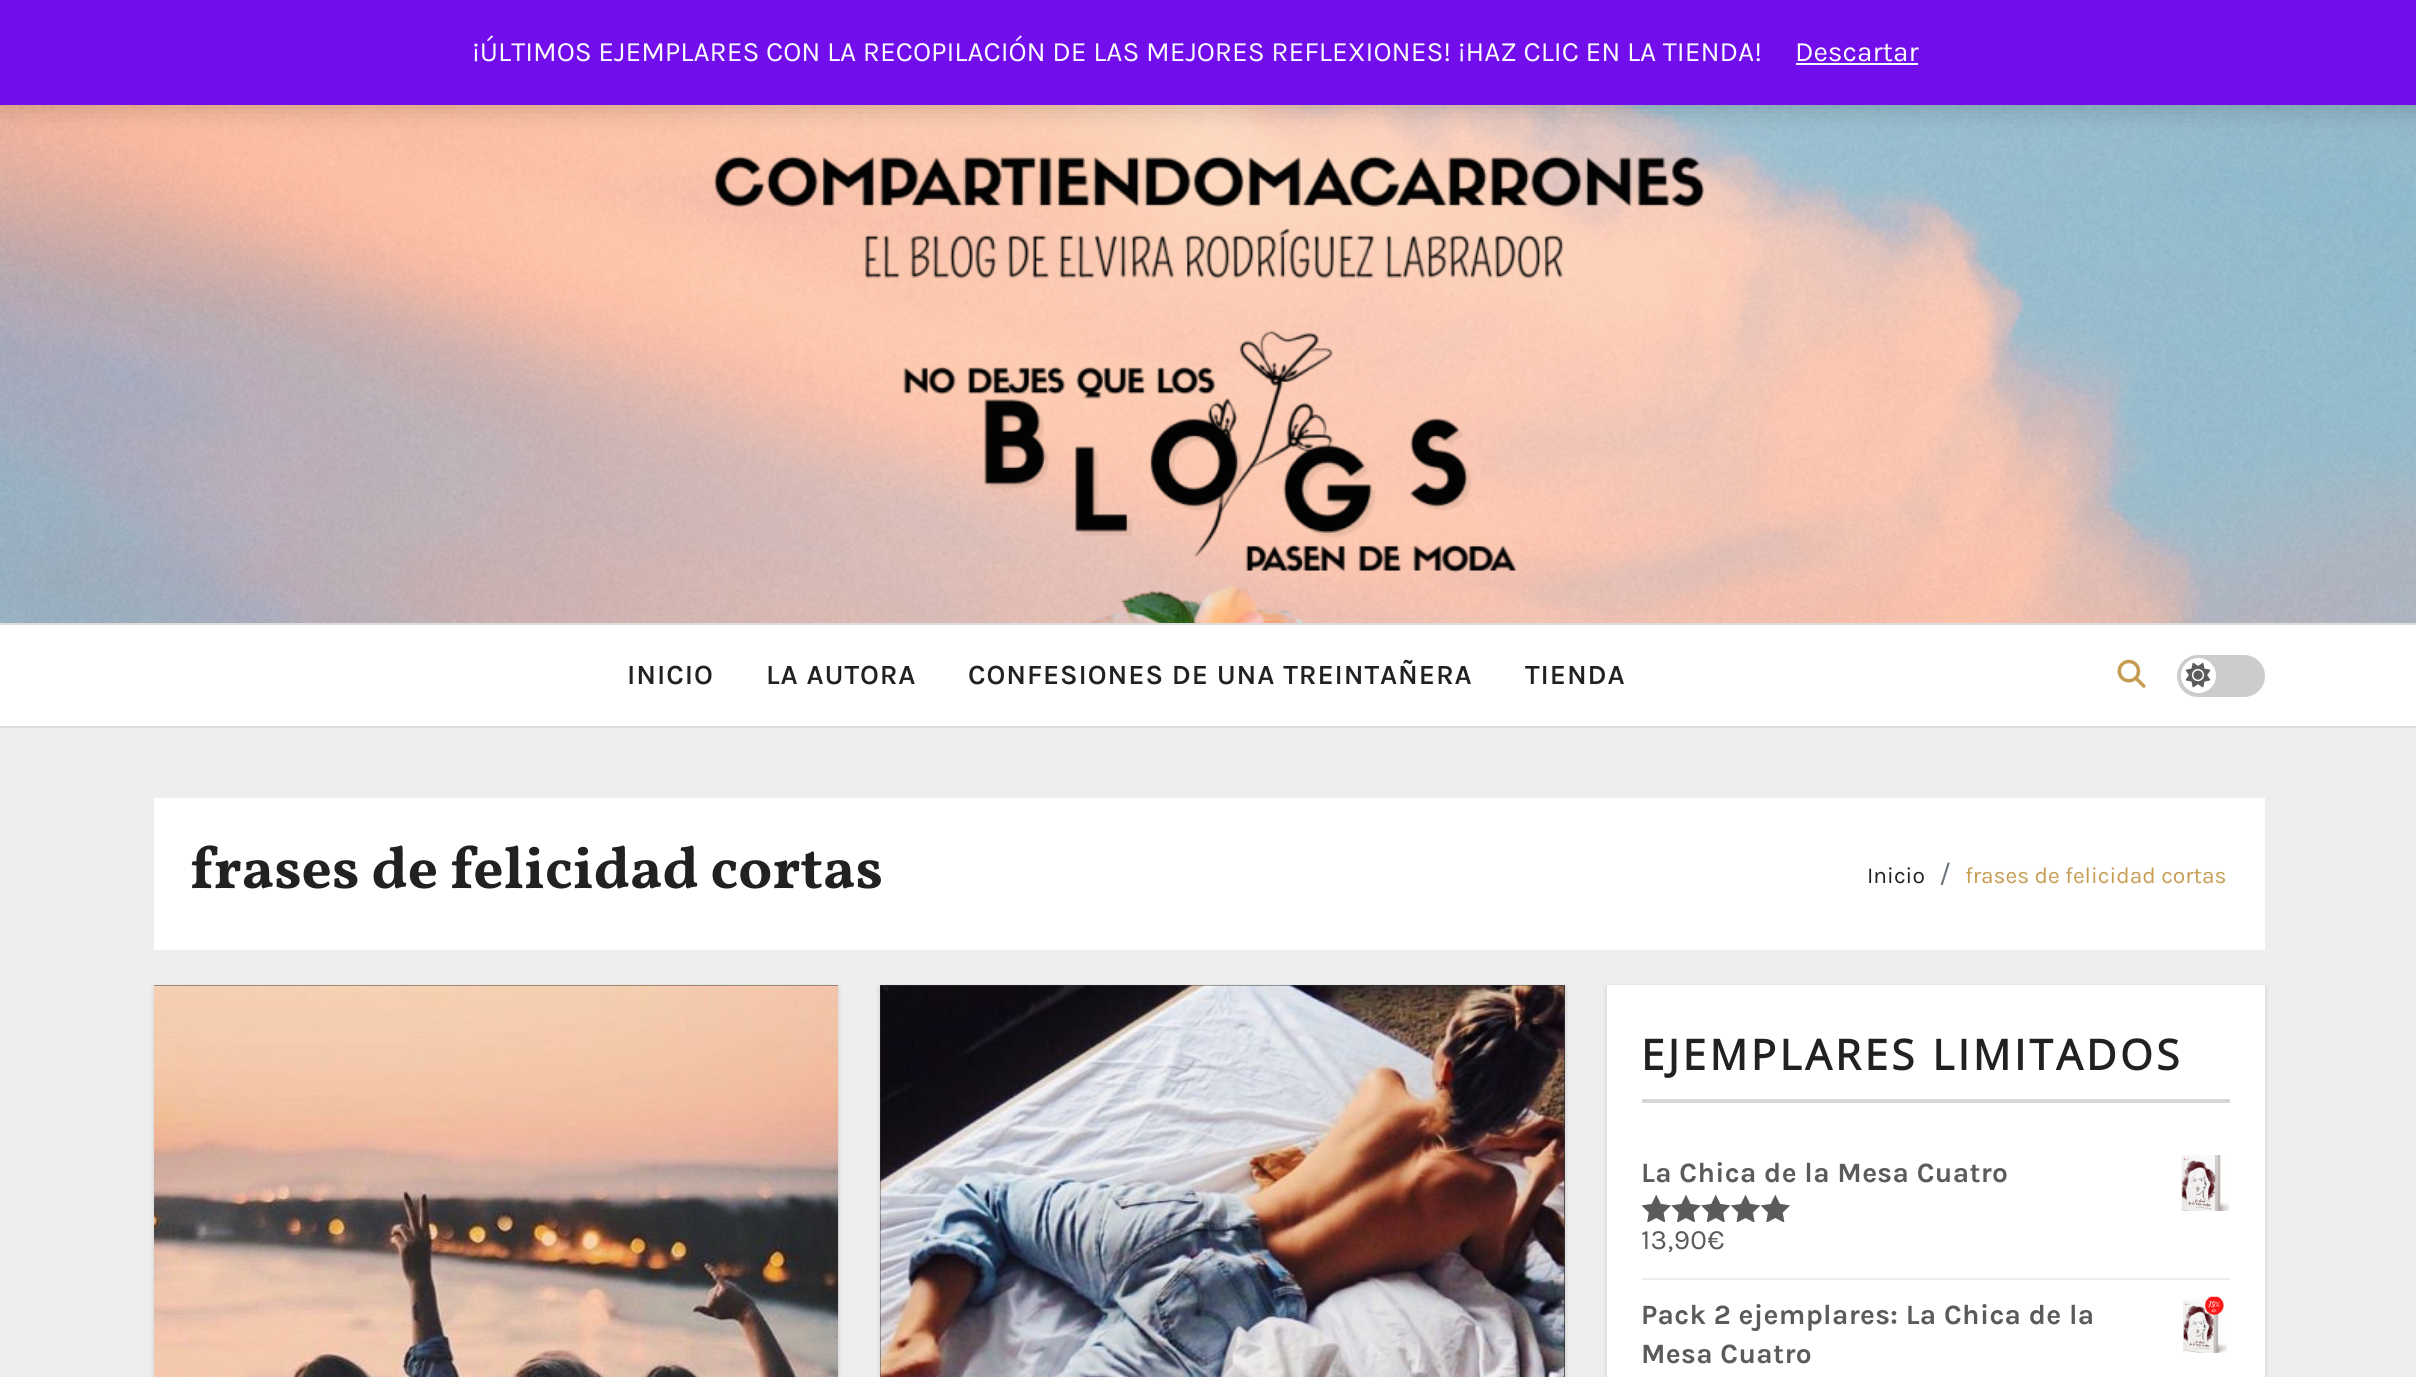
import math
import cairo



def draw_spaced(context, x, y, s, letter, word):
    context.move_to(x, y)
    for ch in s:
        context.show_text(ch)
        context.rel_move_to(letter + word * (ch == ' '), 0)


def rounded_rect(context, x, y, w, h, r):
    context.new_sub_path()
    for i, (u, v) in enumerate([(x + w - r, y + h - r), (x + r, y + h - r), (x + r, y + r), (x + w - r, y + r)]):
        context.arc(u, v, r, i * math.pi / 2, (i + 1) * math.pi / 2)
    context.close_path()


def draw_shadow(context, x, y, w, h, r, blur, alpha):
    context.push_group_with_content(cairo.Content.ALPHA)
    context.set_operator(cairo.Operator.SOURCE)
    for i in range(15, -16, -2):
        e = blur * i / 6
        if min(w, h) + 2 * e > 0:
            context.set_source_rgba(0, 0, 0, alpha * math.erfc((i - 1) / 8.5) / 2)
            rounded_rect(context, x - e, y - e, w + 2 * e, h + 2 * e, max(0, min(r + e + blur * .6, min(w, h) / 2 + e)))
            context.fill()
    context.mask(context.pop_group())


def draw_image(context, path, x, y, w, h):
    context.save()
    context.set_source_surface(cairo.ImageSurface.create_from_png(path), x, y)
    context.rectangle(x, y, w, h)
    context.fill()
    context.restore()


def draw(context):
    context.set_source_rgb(238 / 255, 238 / 255, 238 / 255)
    context.paint()
    draw_image(context, "images/1.png", 0, 105, 2416, 518)
    context.set_source_rgb(0, 0, 0)
    draw_shadow(context, 0, 2, 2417, 105, 0, 14, 0.2)
    context.set_source_rgb(114 / 255, 14 / 255, 236 / 255)
    context.rectangle(0, 0, 2416, 105)
    context.fill()
    context.set_source_rgb(252 / 255, 251 / 255, 254 / 255)
    context.rectangle(1796, 63, 122, 2)
    context.fill()
    context.set_source_rgb(1, 1, 1)
    context.rectangle(0, 625, 2416, 101)
    context.fill()
    context.set_source_rgb(220 / 255, 220 / 255, 220 / 255)
    context.rectangle(0, 623, 2416, 2)
    context.fill()
    context.rectangle(0, 726, 2416, 2)
    context.fill()
    draw_image(context, "images/2.png", 2117, 659, 29, 29)
    context.set_source_rgb(204 / 255, 204 / 255, 204 / 255)
    rounded_rect(context, 2177, 655, 88, 42, 21)
    context.fill()
    context.set_source_rgb(1, 1, 1)
    context.arc(2198.5, 675.5, 17.5, 0, 2 * math.pi)
    context.fill()
    draw_image(context, "images/3.png", 2185, 662, 26, 26)
    context.rectangle(154, 798, 2111, 152)
    context.fill()
    context.set_source_rgb(0, 0, 0)
    draw_shadow(context, 154, 987, 684, 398, 0, 2.5, 0.15)
    context.set_source_rgb(51 / 255, 51 / 255, 51 / 255)
    context.rectangle(154, 985, 684, 1)
    context.fill()
    draw_image(context, "images/4.png", 154, 985, 685, 392)
    context.set_source_rgb(0, 0, 0)
    draw_shadow(context, 880, 987, 685, 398, 0, 2.5, 0.15)
    context.set_source_rgb(51 / 255, 51 / 255, 51 / 255)
    context.rectangle(880, 985, 685, 392)
    context.fill()
    draw_image(context, "images/5.png", 880, 985, 685, 392)
    context.set_source_rgb(0, 0, 0)
    draw_shadow(context, 1607, 987, 658, 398, 0, 2.5, 0.15)
    context.set_source_rgb(1, 1, 1)
    context.rectangle(1607, 985, 658, 392)
    context.fill()
    context.set_source_rgb(215 / 255, 215 / 255, 215 / 255)
    context.rectangle(1642, 1099, 588, 4)
    context.fill()
    context.set_source_rgb(238 / 255, 238 / 255, 238 / 255)
    context.rectangle(1642, 1278, 588, 2)
    context.fill()
    draw_image(context, "images/6.png", 2181, 1155, 49, 56)
    draw_image(context, "images/8.png", 1642, 1195, 148, 27)
    draw_image(context, "images/7.png", 1642, 1194, 148, 28)
    draw_image(context, "images/9.png", 2183, 1296, 44, 57)
    context.select_font_face("Karla")
    context.set_font_size(28)
    context.set_source_rgb(252 / 255, 251 / 255, 254 / 255)
    context.move_to(472, 61)
    context.show_text("¡ÚLTIMOS EJEMPLARES CON LA RECOPILACIÓN DE LAS MEJORES REFLEXIONES! ¡HAZ CLIC EN LA TIENDA!")
    context.move_to(1795, 61)
    context.show_text("Descartar")
    context.select_font_face("Karla SemiBold")
    context.set_source_rgb(33 / 255, 33 / 255, 33 / 255)
    draw_spaced(context, 627, 684, "INICIO", 0.9, 0)
    draw_spaced(context, 766, 684, "LA AUTORA", 0.9, 0)
    draw_spaced(context, 968, 684, "CONFESIONES DE UNA TREINTAÑERA", 0.9, 0)
    draw_spaced(context, 1525, 684, "TIENDA", 0.9, 0)
    context.select_font_face("Vollkorn", cairo.FontSlant.NORMAL, cairo.FontWeight.BOLD)
    context.set_font_size(59.5)
    context.move_to(190, 888)
    context.show_text("frases de felicidad cortas")
    context.select_font_face("Karla")
    context.set_font_size(22.75)
    context.move_to(1867, 883)
    context.show_text("Inicio")
    context.set_font_size(28)
    context.set_source_rgb(108 / 255, 117 / 255, 125 / 255)
    context.move_to(1939, 883)
    context.show_text("/")
    context.set_font_size(22.75)
    context.set_source_rgb(198 / 255, 156 / 255, 83 / 255)
    context.move_to(1965, 883)
    context.show_text("frases de felicidad cortas")
    context.select_font_face("Open Sans", cairo.FontSlant.NORMAL, cairo.FontWeight.BOLD)
    context.set_font_size(42)
    context.set_source_rgb(33 / 255, 33 / 255, 33 / 255)
    draw_spaced(context, 1641, 1070, "EJEMPLARES LIMITADOS", 3.5, 0)
    context.select_font_face("Karla", cairo.FontSlant.NORMAL, cairo.FontWeight.BOLD)
    context.set_font_size(28)
    context.set_source_rgb(91 / 255, 91 / 255, 91 / 255)
    draw_spaced(context, 1641, 1182, "La Chica de la Mesa Cuatro", 0.35, 0)
    context.select_font_face("Karla")
    draw_spaced(context, 1641, 1249, "13,90€", 0.35, 0)
    context.select_font_face("Karla", cairo.FontSlant.NORMAL, cairo.FontWeight.BOLD)
    draw_spaced(context, 1641, 1324, "Pack 2 ejemplares: La Chica de la", 0.35, 0)
    draw_spaced(context, 1641, 1363, "Mesa Cuatro", 0.35, 0)


surface = cairo.ImageSurface(cairo.Format.RGB24, 2416, 1377)
context = cairo.Context(surface)
options = cairo.FontOptions()
options.set_hint_metrics(cairo.HintMetrics.OFF)
options.set_hint_style(cairo.HintStyle.NONE)
context.set_font_options(options)
context.set_miter_limit(4)
draw(context)
surface.write_to_png("out.png")
